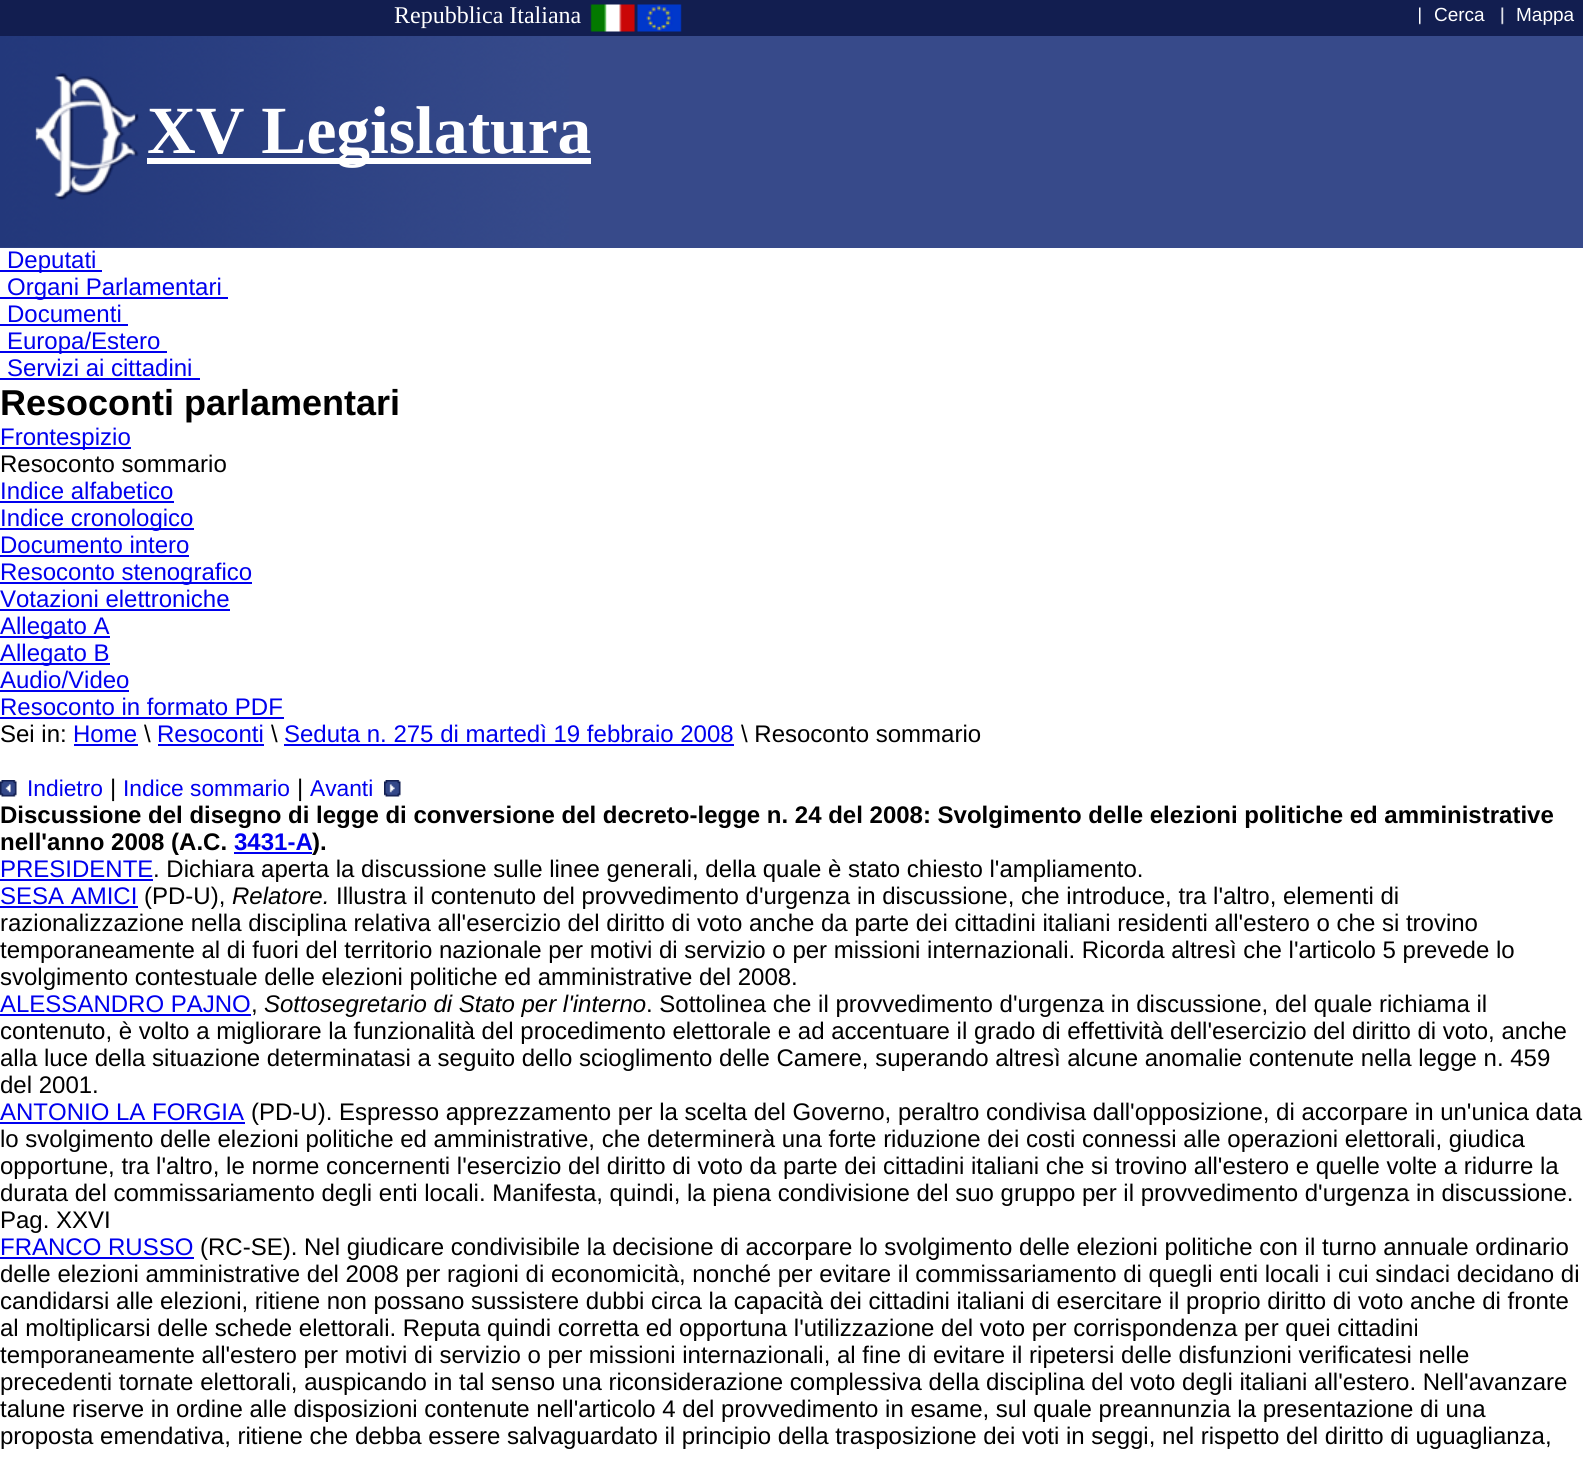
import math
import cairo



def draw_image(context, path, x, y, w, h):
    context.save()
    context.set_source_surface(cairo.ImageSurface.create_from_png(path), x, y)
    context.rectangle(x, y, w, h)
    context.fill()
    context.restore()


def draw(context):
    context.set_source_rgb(1, 1, 1)
    context.paint()
    context.set_source_rgb(55 / 255, 74 / 255, 138 / 255)
    context.rectangle(0, 36, 1583, 212)
    context.fill()
    draw_image(context, "images/1.png", 0, 36, 569, 212)
    context.set_source_rgb(18 / 255, 30 / 255, 80 / 255)
    context.rectangle(0, 0, 1583, 36)
    context.fill()
    draw_image(context, "images/2.png", 590, 4, 45, 28)
    draw_image(context, "images/3.png", 637, 4, 45, 28)
    draw_image(context, "images/4.png", 1419, 7, 2, 18)
    draw_image(context, "images/5.png", 1501, 7, 3, 18)
    draw_image(context, "images/6.png", 35, 73, 104, 127)
    context.set_source_rgb(1, 1, 1)
    context.rectangle(147, 158, 444, 6)
    context.fill()
    context.set_source_rgb(0, 0, 238 / 255)
    context.rectangle(0, 270, 102, 2)
    context.fill()
    context.rectangle(0, 297, 228, 2)
    context.fill()
    context.rectangle(0, 324, 128, 2)
    context.fill()
    context.rectangle(0, 351, 167, 2)
    context.fill()
    context.rectangle(0, 378, 200, 2)
    context.fill()
    context.rectangle(0, 447, 131, 2)
    context.fill()
    context.rectangle(0, 501, 174, 2)
    context.fill()
    context.rectangle(0, 528, 194, 2)
    context.fill()
    context.rectangle(0, 555, 189, 2)
    context.fill()
    context.rectangle(0, 582, 252, 2)
    context.fill()
    context.rectangle(0, 609, 230, 2)
    context.fill()
    context.rectangle(0, 636, 110, 2)
    context.fill()
    context.rectangle(0, 663, 110, 2)
    context.fill()
    context.rectangle(0, 690, 129, 2)
    context.fill()
    context.rectangle(0, 717, 284, 2)
    context.fill()
    context.rectangle(74, 744, 64, 2)
    context.fill()
    context.rectangle(158, 744, 106, 2)
    context.fill()
    context.rectangle(284, 744, 450, 2)
    context.fill()
    draw_image(context, "images/7.png", 0, 780, 17, 17)
    draw_image(context, "images/8.png", 384, 780, 17, 17)
    context.rectangle(234, 852, 78, 2)
    context.fill()
    context.rectangle(0, 879, 153, 2)
    context.fill()
    context.rectangle(0, 906, 138, 2)
    context.fill()
    context.rectangle(0, 1014, 251, 2)
    context.fill()
    context.rectangle(0, 1122, 245, 2)
    context.fill()
    context.rectangle(0, 1257, 194, 2)
    context.fill()
    context.select_font_face("Liberation Serif")
    context.set_font_size(24)
    context.set_source_rgb(1, 1, 1)
    context.move_to(394, 23)
    context.show_text("Repubblica Italiana")
    context.select_font_face("Liberation Sans")
    context.set_font_size(19)
    context.move_to(1434, 21)
    context.show_text("Cerca")
    context.move_to(1516, 21)
    context.show_text("Mappa")
    context.select_font_face("Liberation Serif", cairo.FontSlant.NORMAL, cairo.FontWeight.BOLD)
    context.set_font_size(67.5)
    context.move_to(147, 153)
    context.show_text("XV Legislatura")
    context.select_font_face("Liberation Sans")
    context.set_font_size(24)
    context.set_source_rgb(0, 0, 238 / 255)
    context.move_to(7, 268)
    context.show_text("Deputati")
    context.move_to(7, 295)
    context.show_text("Organi Parlamentari")
    context.move_to(7, 322)
    context.show_text("Documenti")
    context.move_to(7, 349)
    context.show_text("Europa/Estero")
    context.move_to(7, 376)
    context.show_text("Servizi ai cittadini")
    context.select_font_face("Liberation Sans", cairo.FontSlant.NORMAL, cairo.FontWeight.BOLD)
    context.set_font_size(36)
    context.set_source_rgb(0, 0, 0)
    context.move_to(0, 415)
    context.show_text("Resoconti parlamentari")
    context.select_font_face("Liberation Sans")
    context.set_font_size(24)
    context.set_source_rgb(0, 0, 238 / 255)
    context.move_to(0, 445)
    context.show_text("Frontespizio")
    context.set_source_rgb(0, 0, 0)
    context.move_to(0, 472)
    context.show_text("Resoconto sommario")
    context.set_source_rgb(0, 0, 238 / 255)
    context.move_to(0, 499)
    context.show_text("Indice alfabetico")
    context.move_to(0, 526)
    context.show_text("Indice cronologico")
    context.move_to(0, 553)
    context.show_text("Documento intero")
    context.move_to(0, 580)
    context.show_text("Resoconto stenografico")
    context.move_to(0, 607)
    context.show_text("Votazioni elettroniche")
    context.move_to(0, 634)
    context.show_text("Allegato A")
    context.move_to(0, 661)
    context.show_text("Allegato B")
    context.move_to(0, 688)
    context.show_text("Audio/Video")
    context.move_to(0, 715)
    context.show_text("Resoconto in formato PDF")
    context.set_source_rgb(0, 0, 0)
    context.move_to(0, 742)
    context.show_text("Sei in:")
    context.set_source_rgb(0, 0, 238 / 255)
    context.move_to(73, 742)
    context.show_text("Home")
    context.set_source_rgb(0, 0, 0)
    context.move_to(144, 742)
    context.show_text("\\")
    context.set_source_rgb(0, 0, 238 / 255)
    context.move_to(157, 742)
    context.show_text("Resoconti")
    context.set_source_rgb(0, 0, 0)
    context.move_to(271, 742)
    context.show_text("\\")
    context.set_source_rgb(0, 0, 238 / 255)
    context.move_to(284, 742)
    context.show_text("Seduta n. 275 di martedì 19 febbraio 2008")
    context.set_source_rgb(0, 0, 0)
    context.move_to(741, 742)
    context.show_text("\\ Resoconto sommario")
    context.set_font_size(22.75)
    context.set_source_rgb(0, 0, 238 / 255)
    context.move_to(27, 796)
    context.show_text("Indietro")
    context.set_font_size(24)
    context.set_source_rgb(0, 0, 0)
    context.move_to(110, 796)
    context.show_text("|")
    context.set_font_size(22.75)
    context.set_source_rgb(0, 0, 238 / 255)
    context.move_to(123, 796)
    context.show_text("Indice sommario")
    context.set_font_size(24)
    context.set_source_rgb(0, 0, 0)
    context.move_to(297, 796)
    context.show_text("|")
    context.set_font_size(22.75)
    context.set_source_rgb(0, 0, 238 / 255)
    context.move_to(310, 796)
    context.show_text("Avanti")
    context.select_font_face("Liberation Sans", cairo.FontSlant.NORMAL, cairo.FontWeight.BOLD)
    context.set_font_size(24)
    context.set_source_rgb(0, 0, 0)
    context.move_to(0, 823)
    context.show_text("Discussione del disegno di legge di conversione del decreto-legge n. 24 del 2008: Svolgimento delle elezioni politiche ed amministrative")
    context.move_to(0, 850)
    context.show_text("nell'anno 2008 (A.C.")
    context.set_source_rgb(0, 0, 238 / 255)
    context.move_to(234, 850)
    context.show_text("3431-A")
    context.set_source_rgb(0, 0, 0)
    context.move_to(312, 850)
    context.show_text(").")
    context.select_font_face("Liberation Sans")
    context.set_source_rgb(0, 0, 238 / 255)
    context.move_to(0, 877)
    context.show_text("PRESIDENTE")
    context.set_source_rgb(0, 0, 0)
    context.move_to(153, 877)
    context.show_text(". Dichiara aperta la discussione sulle linee generali, della quale è stato chiesto l'ampliamento.")
    context.set_source_rgb(0, 0, 238 / 255)
    context.move_to(0, 904)
    context.show_text("SESA AMICI")
    context.set_source_rgb(0, 0, 0)
    context.move_to(144, 904)
    context.show_text("(PD-U),")
    context.select_font_face("Liberation Sans", cairo.FontSlant.ITALIC)
    context.move_to(232, 904)
    context.show_text("Relatore.")
    context.select_font_face("Liberation Sans")
    context.move_to(336, 904)
    context.show_text("Illustra il contenuto del provvedimento d'urgenza in discussione, che introduce, tra l'altro, elementi di")
    context.move_to(0, 931)
    context.show_text("razionalizzazione nella disciplina relativa all'esercizio del diritto di voto anche da parte dei cittadini italiani residenti all'estero o che si trovino")
    context.move_to(0, 958)
    context.show_text("temporaneamente al di fuori del territorio nazionale per motivi di servizio o per missioni internazionali. Ricorda altresì che l'articolo 5 prevede lo")
    context.move_to(0, 985)
    context.show_text("svolgimento contestuale delle elezioni politiche ed amministrative del 2008.")
    context.set_source_rgb(0, 0, 238 / 255)
    context.move_to(0, 1012)
    context.show_text("ALESSANDRO PAJNO")
    context.set_source_rgb(0, 0, 0)
    context.move_to(251, 1012)
    context.show_text(",")
    context.select_font_face("Liberation Sans", cairo.FontSlant.ITALIC)
    context.move_to(264, 1012)
    context.show_text("Sottosegretario di Stato per l'interno")
    context.select_font_face("Liberation Sans")
    context.move_to(646, 1012)
    context.show_text(". Sottolinea che il provvedimento d'urgenza in discussione, del quale richiama il")
    context.move_to(0, 1039)
    context.show_text("contenuto, è volto a migliorare la funzionalità del procedimento elettorale e ad accentuare il grado di effettività dell'esercizio del diritto di voto, anche")
    context.move_to(0, 1066)
    context.show_text("alla luce della situazione determinatasi a seguito dello scioglimento delle Camere, superando altresì alcune anomalie contenute nella legge n. 459")
    context.move_to(0, 1093)
    context.show_text("del 2001.")
    context.set_source_rgb(0, 0, 238 / 255)
    context.move_to(0, 1120)
    context.show_text("ANTONIO LA FORGIA")
    context.set_source_rgb(0, 0, 0)
    context.move_to(251, 1120)
    context.show_text("(PD-U). Espresso apprezzamento per la scelta del Governo, peraltro condivisa dall'opposizione, di accorpare in un'unica data")
    context.move_to(0, 1147)
    context.show_text("lo svolgimento delle elezioni politiche ed amministrative, che determinerà una forte riduzione dei costi connessi alle operazioni elettorali, giudica")
    context.move_to(0, 1174)
    context.show_text("opportune, tra l'altro, le norme concernenti l'esercizio del diritto di voto da parte dei cittadini italiani che si trovino all'estero e quelle volte a ridurre la")
    context.move_to(0, 1201)
    context.show_text("durata del commissariamento degli enti locali. Manifesta, quindi, la piena condivisione del suo gruppo per il provvedimento d'urgenza in discussione.")
    context.move_to(0, 1228)
    context.show_text("Pag. XXVI")
    context.set_source_rgb(0, 0, 238 / 255)
    context.move_to(0, 1255)
    context.show_text("FRANCO RUSSO")
    context.set_source_rgb(0, 0, 0)
    context.move_to(200, 1255)
    context.show_text("(RC-SE). Nel giudicare condivisibile la decisione di accorpare lo svolgimento delle elezioni politiche con il turno annuale ordinario")
    context.move_to(0, 1282)
    context.show_text("delle elezioni amministrative del 2008 per ragioni di economicità, nonché per evitare il commissariamento di quegli enti locali i cui sindaci decidano di")
    context.move_to(0, 1309)
    context.show_text("candidarsi alle elezioni, ritiene non possano sussistere dubbi circa la capacità dei cittadini italiani di esercitare il proprio diritto di voto anche di fronte")
    context.move_to(0, 1336)
    context.show_text("al moltiplicarsi delle schede elettorali. Reputa quindi corretta ed opportuna l'utilizzazione del voto per corrispondenza per quei cittadini")
    context.move_to(0, 1363)
    context.show_text("temporaneamente all'estero per motivi di servizio o per missioni internazionali, al fine di evitare il ripetersi delle disfunzioni verificatesi nelle")
    context.move_to(0, 1390)
    context.show_text("precedenti tornate elettorali, auspicando in tal senso una riconsiderazione complessiva della disciplina del voto degli italiani all'estero. Nell'avanzare")
    context.move_to(0, 1417)
    context.show_text("talune riserve in ordine alle disposizioni contenute nell'articolo 4 del provvedimento in esame, sul quale preannunzia la presentazione di una")
    context.move_to(0, 1444)
    context.show_text("proposta emendativa, ritiene che debba essere salvaguardato il principio della trasposizione dei voti in seggi, nel rispetto del diritto di uguaglianza,")


surface = cairo.ImageSurface(cairo.Format.RGB24, 1583, 1459)
context = cairo.Context(surface)
options = cairo.FontOptions()
options.set_hint_metrics(cairo.HintMetrics.OFF)
options.set_hint_style(cairo.HintStyle.NONE)
context.set_font_options(options)
context.set_miter_limit(4)
draw(context)
surface.write_to_png("out.png")
